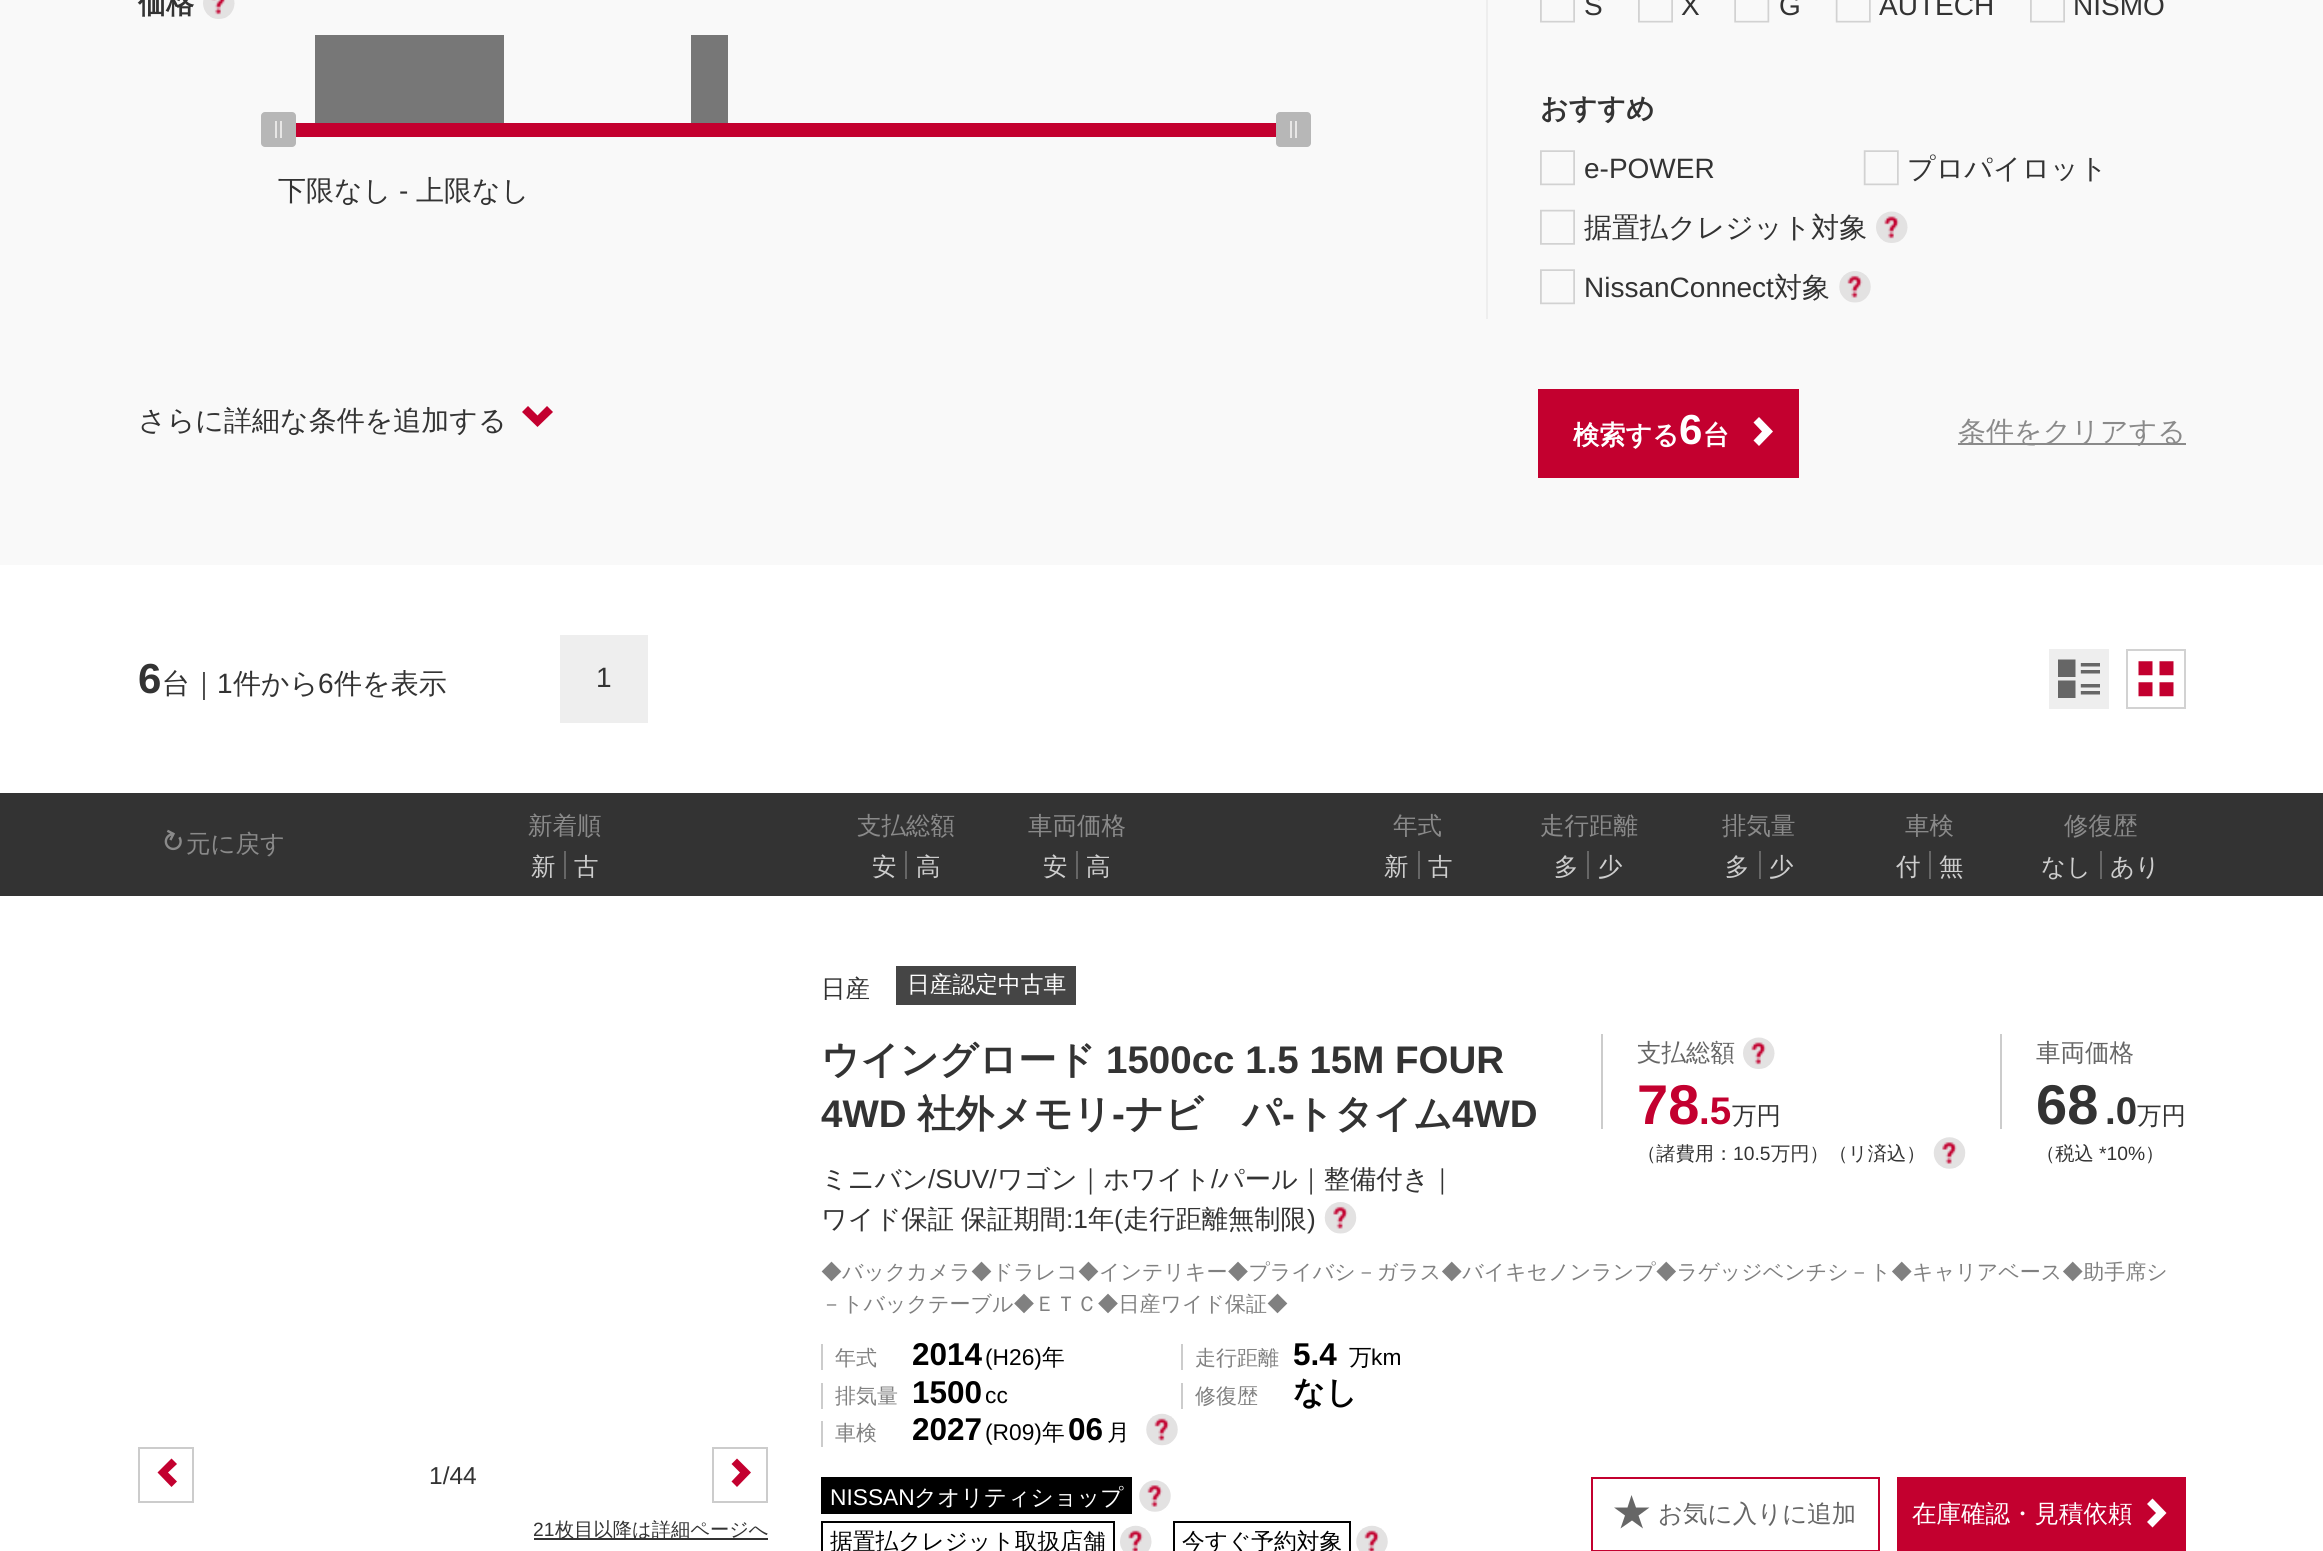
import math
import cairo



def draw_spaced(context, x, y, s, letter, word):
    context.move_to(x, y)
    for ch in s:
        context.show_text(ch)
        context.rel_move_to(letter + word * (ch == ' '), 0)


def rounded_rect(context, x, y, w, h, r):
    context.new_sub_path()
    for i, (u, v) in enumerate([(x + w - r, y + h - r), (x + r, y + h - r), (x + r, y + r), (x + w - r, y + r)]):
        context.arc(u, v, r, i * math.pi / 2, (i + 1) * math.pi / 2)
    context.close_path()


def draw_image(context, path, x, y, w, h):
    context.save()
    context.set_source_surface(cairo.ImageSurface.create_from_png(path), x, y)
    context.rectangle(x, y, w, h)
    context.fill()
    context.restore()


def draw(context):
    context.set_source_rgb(1, 1, 1)
    context.paint()
    context.set_source_rgb(249 / 255, 249 / 255, 249 / 255)
    context.rectangle(0, 0, 2323, 565)
    context.fill()
    draw_image(context, "images/1.png", 203, 0, 32, 19)
    context.set_source_rgb(119 / 255, 119 / 255, 119 / 255)
    context.rectangle(315, 35, 189, 88)
    context.fill()
    context.rectangle(691, 35, 37, 88)
    context.fill()
    context.set_source_rgb(183 / 255, 183 / 255, 183 / 255)
    rounded_rect(context, 261, 112, 35, 35, 4)
    context.fill()
    context.set_source_rgb(232 / 255, 231 / 255, 230 / 255)
    context.rectangle(275, 121, 2, 17)
    context.fill()
    context.rectangle(280, 121, 2, 17)
    context.fill()
    context.set_source_rgb(195 / 255, 0, 47 / 255)
    context.rectangle(296, 123, 980, 14)
    context.fill()
    context.set_source_rgb(183 / 255, 183 / 255, 183 / 255)
    rounded_rect(context, 1276, 112, 35, 35, 4)
    context.fill()
    context.set_source_rgb(232 / 255, 231 / 255, 230 / 255)
    context.rectangle(1290, 121, 2, 17)
    context.fill()
    context.rectangle(1295, 121, 2, 17)
    context.fill()
    context.set_source_rgb(238 / 255, 238 / 255, 238 / 255)
    context.rectangle(1486, 0, 2, 319)
    context.fill()
    draw_image(context, "images/2.png", 1540, 0, 35, 23)
    draw_image(context, "images/2.png", 1638, 0, 35, 23)
    draw_image(context, "images/3.png", 1734, 0, 36, 23)
    draw_image(context, "images/4.png", 1835, 0, 36, 23)
    draw_image(context, "images/2.png", 2030, 0, 35, 23)
    draw_image(context, "images/5.png", 1540, 150, 35, 36)
    draw_image(context, "images/6.png", 1863, 150, 36, 36)
    draw_image(context, "images/7.png", 1540, 209, 35, 36)
    draw_image(context, "images/8.png", 1876, 211, 32, 32)
    draw_image(context, "images/5.png", 1540, 269, 35, 36)
    draw_image(context, "images/9.png", 1839, 271, 32, 32)
    context.set_source_rgb(195 / 255, 0, 47 / 255)
    context.new_path()
    context.move_to(522, 412)
    context.line_to(528, 406)
    context.line_to(537.5, 415.5)
    context.line_to(547, 406)
    context.line_to(553, 412)
    context.line_to(537.5, 427)
    context.close_path()
    context.fill()
    context.rectangle(1538, 389, 261, 89)
    context.fill()
    context.set_source_rgb(1, 1, 1)
    context.new_path()
    context.move_to(1759, 446)
    context.line_to(1753.5, 440.5)
    context.line_to(1762, 431.5)
    context.line_to(1753.5, 422.5)
    context.line_to(1759, 417)
    context.line_to(1773, 431.5)
    context.close_path()
    context.fill()
    context.set_source_rgb(138 / 255, 138 / 255, 138 / 255)
    context.rectangle(1958, 443, 228, 2)
    context.fill()
    context.set_source_rgb(238 / 255, 238 / 255, 238 / 255)
    context.rectangle(560, 635, 88, 88)
    context.fill()
    context.rectangle(2049, 649, 60, 60)
    context.fill()
    draw_image(context, "images/10.png", 2058, 659, 42, 39)
    draw_image(context, "images/11.png", 2138, 661, 36, 36)
    context.rectangle(2127, 650, 58, 58)
    context.set_source_rgb(210 / 255, 210 / 255, 210 / 255)
    context.stroke()
    context.set_source_rgb(51 / 255, 51 / 255, 51 / 255)
    context.rectangle(0, 793, 2323, 103)
    context.fill()
    draw_image(context, "images/12.png", 164, 829, 18, 22)
    context.set_source_rgb(102 / 255, 102 / 255, 102 / 255)
    context.rectangle(564, 851, 2, 28)
    context.fill()
    context.rectangle(905, 851, 2, 28)
    context.fill()
    context.rectangle(1076, 851, 2, 28)
    context.fill()
    context.rectangle(1418, 851, 2, 28)
    context.fill()
    context.rectangle(1587, 851, 2, 28)
    context.fill()
    context.rectangle(1759, 851, 2, 28)
    context.fill()
    context.rectangle(1929, 851, 2, 28)
    context.fill()
    context.rectangle(2100, 851, 2, 28)
    context.fill()
    context.rectangle(139, 1448, 54, 54)
    context.set_source_rgb(204 / 255, 204 / 255, 204 / 255)
    context.stroke()
    context.set_source_rgb(195 / 255, 0, 47 / 255)
    context.new_path()
    context.move_to(171.5, 1458.5)
    context.line_to(177, 1464)
    context.line_to(168, 1472.5)
    context.line_to(177, 1481.5)
    context.line_to(171.5, 1487)
    context.line_to(157.5, 1472.5)
    context.close_path()
    context.fill()
    context.rectangle(713, 1448, 54, 54)
    context.set_source_rgb(204 / 255, 204 / 255, 204 / 255)
    context.stroke()
    context.set_source_rgb(195 / 255, 0, 47 / 255)
    context.new_path()
    context.move_to(737, 1487)
    context.line_to(731.5, 1481.5)
    context.line_to(740, 1472.5)
    context.line_to(731.5, 1464)
    context.line_to(737, 1458.5)
    context.line_to(751, 1472.5)
    context.close_path()
    context.fill()
    context.set_source_rgb(51 / 255, 51 / 255, 51 / 255)
    context.rectangle(534, 1538, 234, 2)
    context.fill()
    context.set_source_rgb(69 / 255, 69 / 255, 69 / 255)
    context.rectangle(896, 966, 180, 39)
    context.fill()
    draw_image(context, "images/13.png", 1324, 1202, 33, 32)
    context.set_source_rgb(204 / 255, 204 / 255, 204 / 255)
    context.rectangle(1601, 1034, 2, 95)
    context.fill()
    draw_image(context, "images/14.png", 1743, 1037, 32, 32)
    draw_image(context, "images/15.png", 1933, 1137, 33, 32)
    context.rectangle(2000, 1034, 2, 95)
    context.fill()
    context.rectangle(821, 1344, 2, 26)
    context.fill()
    context.rectangle(1181, 1344, 2, 26)
    context.fill()
    context.rectangle(821, 1383, 2, 26)
    context.fill()
    context.rectangle(1181, 1383, 2, 26)
    context.fill()
    context.rectangle(821, 1421, 2, 26)
    context.fill()
    draw_image(context, "images/16.png", 1146, 1413, 32, 33)
    context.set_source_rgb(0, 0, 0)
    context.rectangle(821, 1477, 311, 37)
    context.fill()
    draw_image(context, "images/17.png", 1139, 1480, 32, 32)
    context.rectangle(822, 1522, 292, 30)
    context.stroke()
    draw_image(context, "images/18.png", 1120, 1525, 32, 26)
    context.rectangle(1174, 1522, 176, 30)
    context.stroke()
    draw_image(context, "images/19.png", 1356, 1525, 32, 26)
    context.rectangle(1592, 1478, 287, 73)
    context.set_source_rgb(195 / 255, 0, 47 / 255)
    context.stroke()
    context.set_source_rgb(102 / 255, 102 / 255, 102 / 255)
    context.new_path()
    context.move_to(1636, 1507.5)
    context.line_to(1649.5, 1507.5)
    context.line_to(1638.5, 1515.5)
    context.line_to(1643, 1528.5)
    context.line_to(1632, 1520.5)
    context.line_to(1620.5, 1528.5)
    context.line_to(1625, 1515.5)
    context.line_to(1614, 1507.5)
    context.line_to(1627.5, 1507.5)
    context.line_to(1631.5, 1495)
    context.close_path()
    context.fill()
    context.set_source_rgb(195 / 255, 0, 47 / 255)
    context.rectangle(1897, 1477, 289, 74)
    context.fill()
    context.set_source_rgb(1, 1, 1)
    context.new_path()
    context.move_to(2152.5, 1527.5)
    context.line_to(2147, 1522)
    context.line_to(2156, 1513)
    context.line_to(2147, 1504)
    context.line_to(2152.5, 1498.5)
    context.line_to(2166.5, 1513)
    context.close_path()
    context.fill()
    context.select_font_face("WenQuanYi Zen Hei", cairo.FontSlant.NORMAL, cairo.FontWeight.BOLD)
    context.set_font_size(28)
    context.set_source_rgb(51 / 255, 51 / 255, 51 / 255)
    context.move_to(138, 13)
    context.show_text("価格")
    context.select_font_face("WenQuanYi Zen Hei Medium")
    context.move_to(278, 200)
    context.show_text("下限なし")
    context.select_font_face("Liberation Sans")
    context.move_to(399, 200)
    context.show_text("-")
    context.select_font_face("WenQuanYi Zen Hei Medium")
    context.move_to(416, 200)
    context.show_text("上限なし")
    context.select_font_face("Liberation Sans")
    context.move_to(1584, 15)
    context.show_text("S")
    context.move_to(1681, 15)
    context.show_text("X")
    context.move_to(1779, 15)
    context.show_text("G")
    context.move_to(1879, 15)
    context.show_text("AUTECH")
    context.move_to(2073, 15)
    context.show_text("NISMO")
    context.select_font_face("WenQuanYi Zen Hei", cairo.FontSlant.NORMAL, cairo.FontWeight.BOLD)
    context.move_to(1540, 118)
    context.show_text("おすすめ")
    context.select_font_face("Liberation Sans")
    context.move_to(1584, 178)
    context.show_text("e-POWER")
    context.select_font_face("WenQuanYi Zen Hei Medium")
    context.move_to(1907, 178)
    context.show_text("プロパイロット")
    context.move_to(1584, 237)
    context.show_text("据置払クレジット対象")
    context.select_font_face("Liberation Sans")
    context.move_to(1584, 297)
    context.show_text("NissanConnect")
    context.select_font_face("WenQuanYi Zen Hei Medium")
    context.move_to(1774, 297)
    context.show_text("対象")
    context.move_to(138, 430)
    context.show_text("さらに詳細な条件を追加する")
    context.select_font_face("WenQuanYi Zen Hei", cairo.FontSlant.NORMAL, cairo.FontWeight.BOLD)
    context.set_font_size(26.25)
    context.set_source_rgb(1, 1, 1)
    context.move_to(1573, 444)
    context.show_text("検索する")
    context.select_font_face("Liberation Sans", cairo.FontSlant.NORMAL, cairo.FontWeight.BOLD)
    context.set_font_size(42)
    context.move_to(1679, 444)
    context.show_text("6")
    context.select_font_face("WenQuanYi Zen Hei", cairo.FontSlant.NORMAL, cairo.FontWeight.BOLD)
    context.set_font_size(26.25)
    context.move_to(1703, 444)
    context.show_text("台")
    context.select_font_face("WenQuanYi Zen Hei Medium")
    context.set_font_size(28)
    context.set_source_rgb(138 / 255, 138 / 255, 138 / 255)
    context.move_to(1958, 441)
    context.show_text("条件をクリアする")
    context.select_font_face("Liberation Sans", cairo.FontSlant.NORMAL, cairo.FontWeight.BOLD)
    context.set_font_size(42)
    context.set_source_rgb(51 / 255, 51 / 255, 51 / 255)
    context.move_to(138, 693)
    context.show_text("6")
    context.select_font_face("WenQuanYi Zen Hei Medium")
    context.set_font_size(28)
    context.move_to(162, 693)
    context.show_text("台｜")
    context.select_font_face("Liberation Sans")
    context.move_to(217, 693)
    context.show_text("1")
    context.select_font_face("WenQuanYi Zen Hei Medium")
    context.move_to(233, 693)
    context.show_text("件から")
    context.select_font_face("Liberation Sans")
    context.move_to(318, 693)
    context.show_text("6")
    context.select_font_face("WenQuanYi Zen Hei Medium")
    context.move_to(334, 693)
    context.show_text("件を表示")
    context.select_font_face("Liberation Sans")
    context.move_to(596, 687)
    context.show_text("1")
    context.select_font_face("WenQuanYi Zen Hei Medium")
    context.set_font_size(24.5)
    context.set_source_rgb(138 / 255, 138 / 255, 138 / 255)
    context.move_to(186, 852)
    context.show_text("元に戻す")
    context.move_to(528, 834)
    context.show_text("新着順")
    context.set_source_rgb(206 / 255, 206 / 255, 206 / 255)
    context.move_to(531, 875)
    context.show_text("新")
    context.move_to(574, 875)
    context.show_text("古")
    context.set_source_rgb(138 / 255, 138 / 255, 138 / 255)
    context.move_to(857, 834)
    context.show_text("支払総額")
    context.set_source_rgb(206 / 255, 206 / 255, 206 / 255)
    context.move_to(872, 875)
    context.show_text("安")
    context.move_to(916, 875)
    context.show_text("高")
    context.set_source_rgb(138 / 255, 138 / 255, 138 / 255)
    context.move_to(1028, 834)
    context.show_text("車両価格")
    context.set_source_rgb(206 / 255, 206 / 255, 206 / 255)
    context.move_to(1043, 875)
    context.show_text("安")
    context.move_to(1086, 875)
    context.show_text("高")
    context.set_source_rgb(138 / 255, 138 / 255, 138 / 255)
    context.move_to(1393, 834)
    context.show_text("年式")
    context.set_source_rgb(206 / 255, 206 / 255, 206 / 255)
    context.move_to(1384, 875)
    context.show_text("新")
    context.move_to(1428, 875)
    context.show_text("古")
    context.set_source_rgb(138 / 255, 138 / 255, 138 / 255)
    context.move_to(1540, 834)
    context.show_text("走行距離")
    context.set_source_rgb(206 / 255, 206 / 255, 206 / 255)
    context.move_to(1554, 875)
    context.show_text("多")
    context.move_to(1598, 875)
    context.show_text("少")
    context.set_source_rgb(138 / 255, 138 / 255, 138 / 255)
    context.move_to(1722, 834)
    context.show_text("排気量")
    context.set_source_rgb(206 / 255, 206 / 255, 206 / 255)
    context.move_to(1725, 875)
    context.show_text("多")
    context.move_to(1769, 875)
    context.show_text("少")
    context.set_source_rgb(138 / 255, 138 / 255, 138 / 255)
    context.move_to(1905, 834)
    context.show_text("車検")
    context.set_source_rgb(206 / 255, 206 / 255, 206 / 255)
    context.move_to(1896, 875)
    context.show_text("付")
    context.move_to(1939, 875)
    context.show_text("無")
    context.set_source_rgb(138 / 255, 138 / 255, 138 / 255)
    context.move_to(2064, 834)
    context.show_text("修復歴")
    context.set_source_rgb(206 / 255, 206 / 255, 206 / 255)
    context.move_to(2041, 875)
    context.show_text("なし")
    context.move_to(2110, 875)
    context.show_text("あり")
    context.select_font_face("Liberation Sans")
    context.set_source_rgb(51 / 255, 51 / 255, 51 / 255)
    context.move_to(429, 1484)
    context.show_text("1/44")
    context.set_font_size(19.25)
    context.move_to(533, 1536)
    context.show_text("21")
    context.select_font_face("WenQuanYi Zen Hei Medium")
    context.move_to(555, 1536)
    context.show_text("枚目以降は詳細ページへ")
    context.set_font_size(24.5)
    context.move_to(821, 997)
    context.show_text("日産")
    context.set_font_size(22.75)
    context.set_source_rgb(1, 1, 1)
    context.move_to(907, 992)
    context.show_text("日産認定中古車")
    context.select_font_face("WenQuanYi Zen Hei", cairo.FontSlant.NORMAL, cairo.FontWeight.BOLD)
    context.set_font_size(38.5)
    context.set_source_rgb(51 / 255, 51 / 255, 51 / 255)
    context.move_to(821, 1073)
    context.show_text("ウイングロード")
    context.select_font_face("Liberation Sans", cairo.FontSlant.NORMAL, cairo.FontWeight.BOLD)
    context.move_to(1106, 1073)
    context.show_text("1500cc 1.5 15M FOUR")
    context.move_to(821, 1127)
    context.show_text("4WD")
    context.select_font_face("WenQuanYi Zen Hei", cairo.FontSlant.NORMAL, cairo.FontWeight.BOLD)
    context.move_to(917, 1127)
    context.show_text("社外メモリ")
    context.select_font_face("Liberation Sans", cairo.FontSlant.NORMAL, cairo.FontWeight.BOLD)
    context.move_to(1112, 1127)
    context.show_text("-")
    context.select_font_face("WenQuanYi Zen Hei", cairo.FontSlant.NORMAL, cairo.FontWeight.BOLD)
    context.move_to(1125, 1127)
    context.show_text("ナビ　パ")
    context.select_font_face("Liberation Sans", cairo.FontSlant.NORMAL, cairo.FontWeight.BOLD)
    context.move_to(1282, 1127)
    context.show_text("-")
    context.select_font_face("WenQuanYi Zen Hei", cairo.FontSlant.NORMAL, cairo.FontWeight.BOLD)
    context.move_to(1295, 1127)
    context.show_text("トタイム")
    context.select_font_face("Liberation Sans", cairo.FontSlant.NORMAL, cairo.FontWeight.BOLD)
    context.move_to(1452, 1127)
    context.show_text("4WD")
    context.select_font_face("WenQuanYi Zen Hei Medium")
    context.set_font_size(26.25)
    context.move_to(821, 1188)
    context.show_text("ミニバン")
    context.select_font_face("Liberation Sans")
    context.move_to(928, 1188)
    context.show_text("/SUV/")
    context.select_font_face("WenQuanYi Zen Hei Medium")
    context.move_to(997, 1188)
    context.show_text("ワゴン｜ホワイト")
    context.select_font_face("Liberation Sans")
    context.move_to(1211, 1188)
    context.show_text("/")
    context.select_font_face("WenQuanYi Zen Hei Medium")
    context.move_to(1218, 1188)
    context.show_text("パール｜整備付き｜")
    draw_spaced(context, 821, 1228, "ワイド保証 保証期間", 0, -1)
    context.select_font_face("Liberation Sans")
    context.move_to(1066, 1228)
    context.show_text(":1")
    context.select_font_face("WenQuanYi Zen Hei Medium")
    context.move_to(1088, 1228)
    context.show_text("年")
    context.select_font_face("Liberation Sans")
    context.move_to(1114, 1228)
    context.show_text("(")
    context.select_font_face("WenQuanYi Zen Hei Medium")
    context.move_to(1123, 1228)
    context.show_text("走行距離無制限")
    context.select_font_face("Liberation Sans")
    context.move_to(1307, 1228)
    context.show_text(")")
    context.select_font_face("WenQuanYi Zen Hei Medium")
    context.set_font_size(24.5)
    context.set_source_rgb(102 / 255, 102 / 255, 102 / 255)
    context.move_to(1637, 1061)
    context.show_text("支払総額")
    context.select_font_face("Liberation Sans", cairo.FontSlant.NORMAL, cairo.FontWeight.BOLD)
    context.set_font_size(56)
    context.set_source_rgb(195 / 255, 0, 47 / 255)
    context.move_to(1637, 1124)
    context.show_text("78")
    context.set_font_size(38.5)
    context.move_to(1699, 1124)
    context.show_text(".5")
    context.select_font_face("WenQuanYi Zen Hei Medium")
    context.set_font_size(24.5)
    context.set_source_rgb(51 / 255, 51 / 255, 51 / 255)
    context.move_to(1732, 1124)
    context.show_text("万円")
    context.set_font_size(19.25)
    context.move_to(1637, 1160)
    context.show_text("（諸費用：")
    context.select_font_face("Liberation Sans")
    context.move_to(1733, 1160)
    context.show_text("10.5")
    context.select_font_face("WenQuanYi Zen Hei Medium")
    context.move_to(1771, 1160)
    context.show_text("万円）（リ済込）")
    context.set_font_size(24.5)
    context.set_source_rgb(102 / 255, 102 / 255, 102 / 255)
    context.move_to(2036, 1061)
    context.show_text("車両価格")
    context.select_font_face("Liberation Sans", cairo.FontSlant.NORMAL, cairo.FontWeight.BOLD)
    context.set_font_size(56)
    context.set_source_rgb(51 / 255, 51 / 255, 51 / 255)
    context.move_to(2036, 1124)
    context.show_text("68")
    context.set_font_size(38.5)
    context.move_to(2105, 1124)
    context.show_text(".0")
    context.select_font_face("WenQuanYi Zen Hei Medium")
    context.set_font_size(24.5)
    context.move_to(2137, 1124)
    context.show_text("万円")
    context.set_font_size(19.25)
    context.move_to(2036, 1160)
    context.show_text("（税込")
    context.select_font_face("Liberation Sans")
    context.move_to(2099, 1160)
    context.show_text("*10%")
    context.select_font_face("WenQuanYi Zen Hei Medium")
    context.move_to(2145, 1160)
    context.show_text("）")
    context.set_font_size(21)
    context.set_source_rgb(128 / 255, 128 / 255, 128 / 255)
    context.move_to(821, 1279)
    context.show_text("◆バックカメラ◆ドラレコ◆インテリキー◆プライバシ－ガラス◆バイキセノンランプ◆ラゲッジベンチシ－ト◆キャリアベース◆助手席シ")
    context.move_to(821, 1311)
    context.show_text("－トバックテーブル◆ＥＴＣ◆日産ワイド保証◆")
    context.move_to(835, 1365)
    context.show_text("年式")
    context.select_font_face("Liberation Sans", cairo.FontSlant.NORMAL, cairo.FontWeight.BOLD)
    context.set_font_size(31.5)
    context.set_source_rgb(0, 0, 0)
    context.move_to(912, 1365)
    context.show_text("2014")
    context.select_font_face("Liberation Sans")
    context.set_font_size(22.75)
    context.move_to(985, 1365)
    context.show_text("(H26)")
    context.select_font_face("WenQuanYi Zen Hei Medium")
    context.move_to(1042, 1365)
    context.show_text("年")
    context.set_font_size(21)
    context.set_source_rgb(128 / 255, 128 / 255, 128 / 255)
    context.move_to(1195, 1365)
    context.show_text("走行距離")
    context.select_font_face("Liberation Sans", cairo.FontSlant.NORMAL, cairo.FontWeight.BOLD)
    context.set_font_size(31.5)
    context.set_source_rgb(0, 0, 0)
    context.move_to(1293, 1365)
    context.show_text("5.4")
    context.select_font_face("WenQuanYi Zen Hei Medium")
    context.set_font_size(22.75)
    context.move_to(1349, 1365)
    context.show_text("万")
    context.select_font_face("Liberation Sans")
    context.move_to(1371, 1365)
    context.show_text("km")
    context.select_font_face("WenQuanYi Zen Hei Medium")
    context.set_font_size(21)
    context.set_source_rgb(128 / 255, 128 / 255, 128 / 255)
    context.move_to(835, 1403)
    context.show_text("排気量")
    context.select_font_face("Liberation Sans", cairo.FontSlant.NORMAL, cairo.FontWeight.BOLD)
    context.set_font_size(31.5)
    context.set_source_rgb(0, 0, 0)
    context.move_to(912, 1403)
    context.show_text("1500")
    context.select_font_face("Liberation Sans")
    context.set_font_size(22.75)
    context.move_to(985, 1403)
    context.show_text("cc")
    context.select_font_face("WenQuanYi Zen Hei Medium")
    context.set_font_size(21)
    context.set_source_rgb(128 / 255, 128 / 255, 128 / 255)
    context.move_to(1195, 1403)
    context.show_text("修復歴")
    context.select_font_face("WenQuanYi Zen Hei", cairo.FontSlant.NORMAL, cairo.FontWeight.BOLD)
    context.set_font_size(31.5)
    context.set_source_rgb(0, 0, 0)
    context.move_to(1293, 1403)
    context.show_text("なし")
    context.select_font_face("WenQuanYi Zen Hei Medium")
    context.set_font_size(21)
    context.set_source_rgb(128 / 255, 128 / 255, 128 / 255)
    context.move_to(835, 1440)
    context.show_text("車検")
    context.select_font_face("Liberation Sans", cairo.FontSlant.NORMAL, cairo.FontWeight.BOLD)
    context.set_font_size(31.5)
    context.set_source_rgb(0, 0, 0)
    context.move_to(912, 1440)
    context.show_text("2027")
    context.select_font_face("Liberation Sans")
    context.set_font_size(22.75)
    context.move_to(985, 1440)
    context.show_text("(R09)")
    context.select_font_face("WenQuanYi Zen Hei Medium")
    context.move_to(1042, 1440)
    context.show_text("年")
    context.select_font_face("Liberation Sans", cairo.FontSlant.NORMAL, cairo.FontWeight.BOLD)
    context.set_font_size(31.5)
    context.move_to(1068, 1440)
    context.show_text("06")
    context.select_font_face("WenQuanYi Zen Hei Medium")
    context.set_font_size(22.75)
    context.move_to(1107, 1440)
    context.show_text("月")
    context.select_font_face("Liberation Sans")
    context.set_source_rgb(1, 1, 1)
    context.move_to(830, 1505)
    context.show_text("NISSAN")
    context.select_font_face("WenQuanYi Zen Hei Medium")
    context.move_to(914, 1505)
    context.show_text("クオリティショップ")
    context.set_source_rgb(0, 0, 0)
    context.move_to(830, 1549)
    context.show_text("据置払クレジット取扱店舗")
    context.move_to(1182, 1549)
    context.show_text("今すぐ予約対象")
    context.set_font_size(24.5)
    context.set_source_rgb(102 / 255, 102 / 255, 102 / 255)
    context.move_to(1658, 1522)
    context.show_text("お気に入りに追加")
    context.set_source_rgb(1, 1, 1)
    context.move_to(1912, 1522)
    context.show_text("在庫確認・見積依頼")


surface = cairo.ImageSurface(cairo.Format.RGB24, 2323, 1551)
context = cairo.Context(surface)
options = cairo.FontOptions()
options.set_hint_metrics(cairo.HintMetrics.OFF)
options.set_hint_style(cairo.HintStyle.NONE)
context.set_font_options(options)
context.set_miter_limit(4)
draw(context)
surface.write_to_png("out.png")
